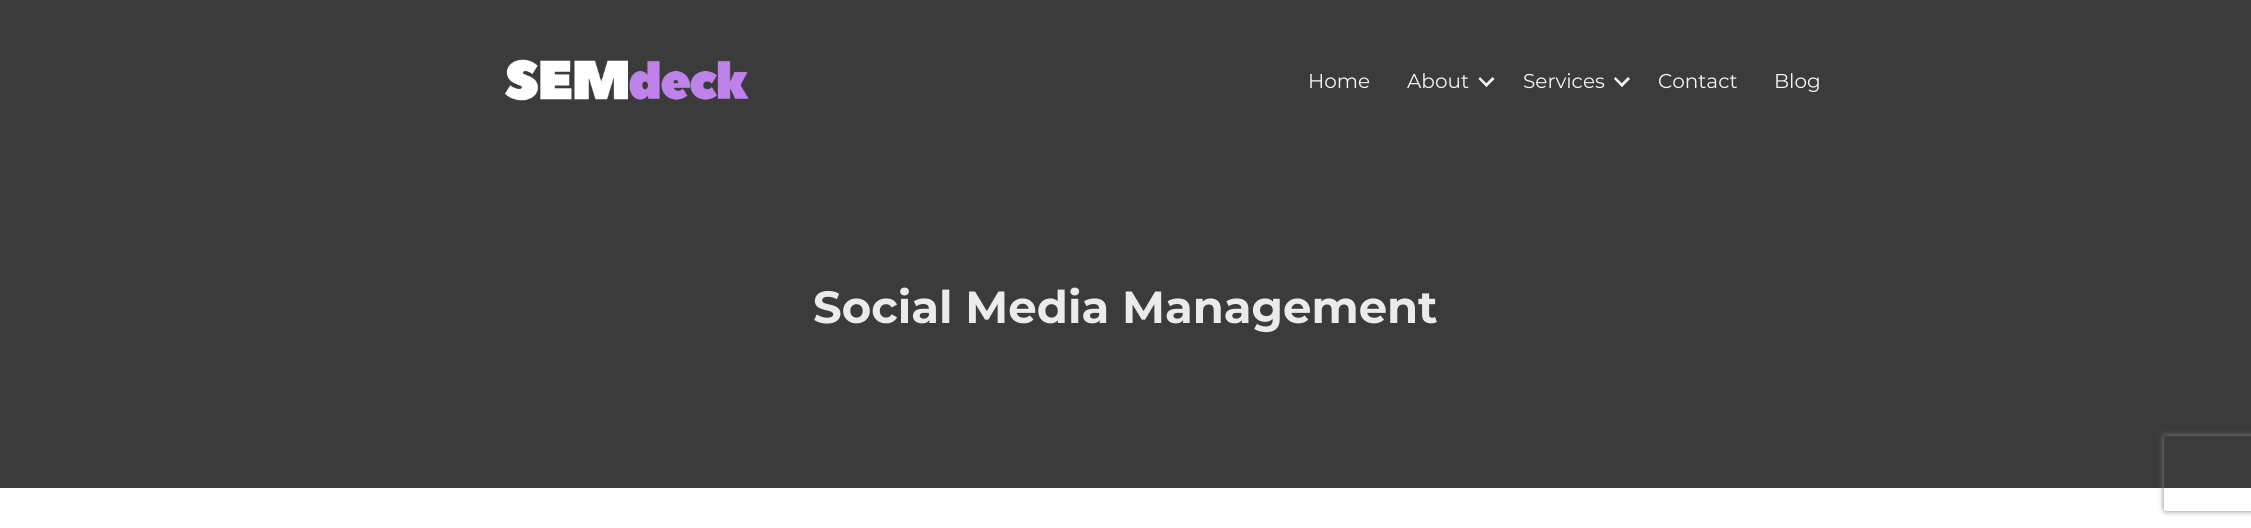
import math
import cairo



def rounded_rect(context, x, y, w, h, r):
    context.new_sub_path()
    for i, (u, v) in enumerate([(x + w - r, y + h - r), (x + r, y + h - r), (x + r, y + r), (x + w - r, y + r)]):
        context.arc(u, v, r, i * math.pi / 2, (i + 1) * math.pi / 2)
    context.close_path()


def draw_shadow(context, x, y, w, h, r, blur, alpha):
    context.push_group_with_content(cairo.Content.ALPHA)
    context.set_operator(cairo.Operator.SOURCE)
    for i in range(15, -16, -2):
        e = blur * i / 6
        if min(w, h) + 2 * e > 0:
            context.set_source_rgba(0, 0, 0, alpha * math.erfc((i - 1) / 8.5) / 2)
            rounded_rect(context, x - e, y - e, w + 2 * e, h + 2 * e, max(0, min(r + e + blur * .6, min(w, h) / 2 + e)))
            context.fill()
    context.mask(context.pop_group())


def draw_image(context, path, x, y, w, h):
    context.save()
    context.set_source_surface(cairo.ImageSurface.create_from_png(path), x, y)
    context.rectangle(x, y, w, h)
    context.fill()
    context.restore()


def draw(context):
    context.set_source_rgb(1, 1, 1)
    context.paint()
    context.set_source_rgb(59 / 255, 59 / 255, 59 / 255)
    context.rectangle(0, 0, 2251, 488)
    context.fill()
    draw_image(context, "images/1.png", 504, 59, 245, 42)
    context.set_source_rgb(245 / 255, 245 / 255, 245 / 255)
    context.new_path()
    context.move_to(1492.5, 77)
    context.line_to(1494.5, 79)
    context.line_to(1486.5, 87)
    context.line_to(1484.5, 85)
    context.close_path()
    context.fill()
    context.new_path()
    context.move_to(1480, 77)
    context.line_to(1488, 85)
    context.line_to(1486.5, 87)
    context.line_to(1478.5, 79)
    context.close_path()
    context.fill()
    context.new_path()
    context.move_to(1628, 77)
    context.line_to(1630, 79)
    context.line_to(1622, 87)
    context.line_to(1620, 85)
    context.close_path()
    context.fill()
    context.new_path()
    context.move_to(1615.5, 77)
    context.line_to(1623.5, 85)
    context.line_to(1622, 87)
    context.line_to(1614, 79)
    context.close_path()
    context.fill()
    context.save()
    context.set_fill_rule(cairo.FillRule.EVEN_ODD)
    context.new_path()
    context.move_to(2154, 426)
    context.line_to(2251, 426)
    context.line_to(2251, 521)
    context.line_to(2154, 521)
    context.close_path()
    context.move_to(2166.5, 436)
    context.line_to(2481.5, 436)
    context.curve_to(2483, 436, 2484, 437, 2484, 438.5)
    context.line_to(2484, 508.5)
    context.curve_to(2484, 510, 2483, 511, 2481.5, 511)
    context.line_to(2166.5, 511)
    context.curve_to(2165, 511, 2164, 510, 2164, 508.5)
    context.line_to(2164, 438.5)
    context.curve_to(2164, 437, 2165, 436, 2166.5, 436)
    context.close_path()
    context.clip()
    context.set_source_rgb(128 / 255, 128 / 255, 128 / 255)
    draw_shadow(context, 2164, 436, 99, 75, 2.5, 3, 1)
    context.restore()
    context.select_font_face("Montserrat")
    context.set_font_size(20)
    context.move_to(1308, 88)
    context.show_text("Home")
    context.move_to(1407, 88)
    context.show_text("About")
    context.move_to(1523, 88)
    context.show_text("Services")
    context.move_to(1658, 88)
    context.show_text("Contact")
    context.move_to(1774, 88)
    context.show_text("Blog")
    context.select_font_face("Montserrat", cairo.FontSlant.NORMAL, cairo.FontWeight.BOLD)
    context.set_font_size(45)
    context.set_source_rgb(235 / 255, 235 / 255, 235 / 255)
    context.move_to(813, 323)
    context.show_text("Social Media Management")


surface = cairo.ImageSurface(cairo.Format.RGB24, 2251, 528)
context = cairo.Context(surface)
options = cairo.FontOptions()
options.set_hint_metrics(cairo.HintMetrics.OFF)
options.set_hint_style(cairo.HintStyle.NONE)
context.set_font_options(options)
context.set_miter_limit(4)
draw(context)
surface.write_to_png("out.png")
